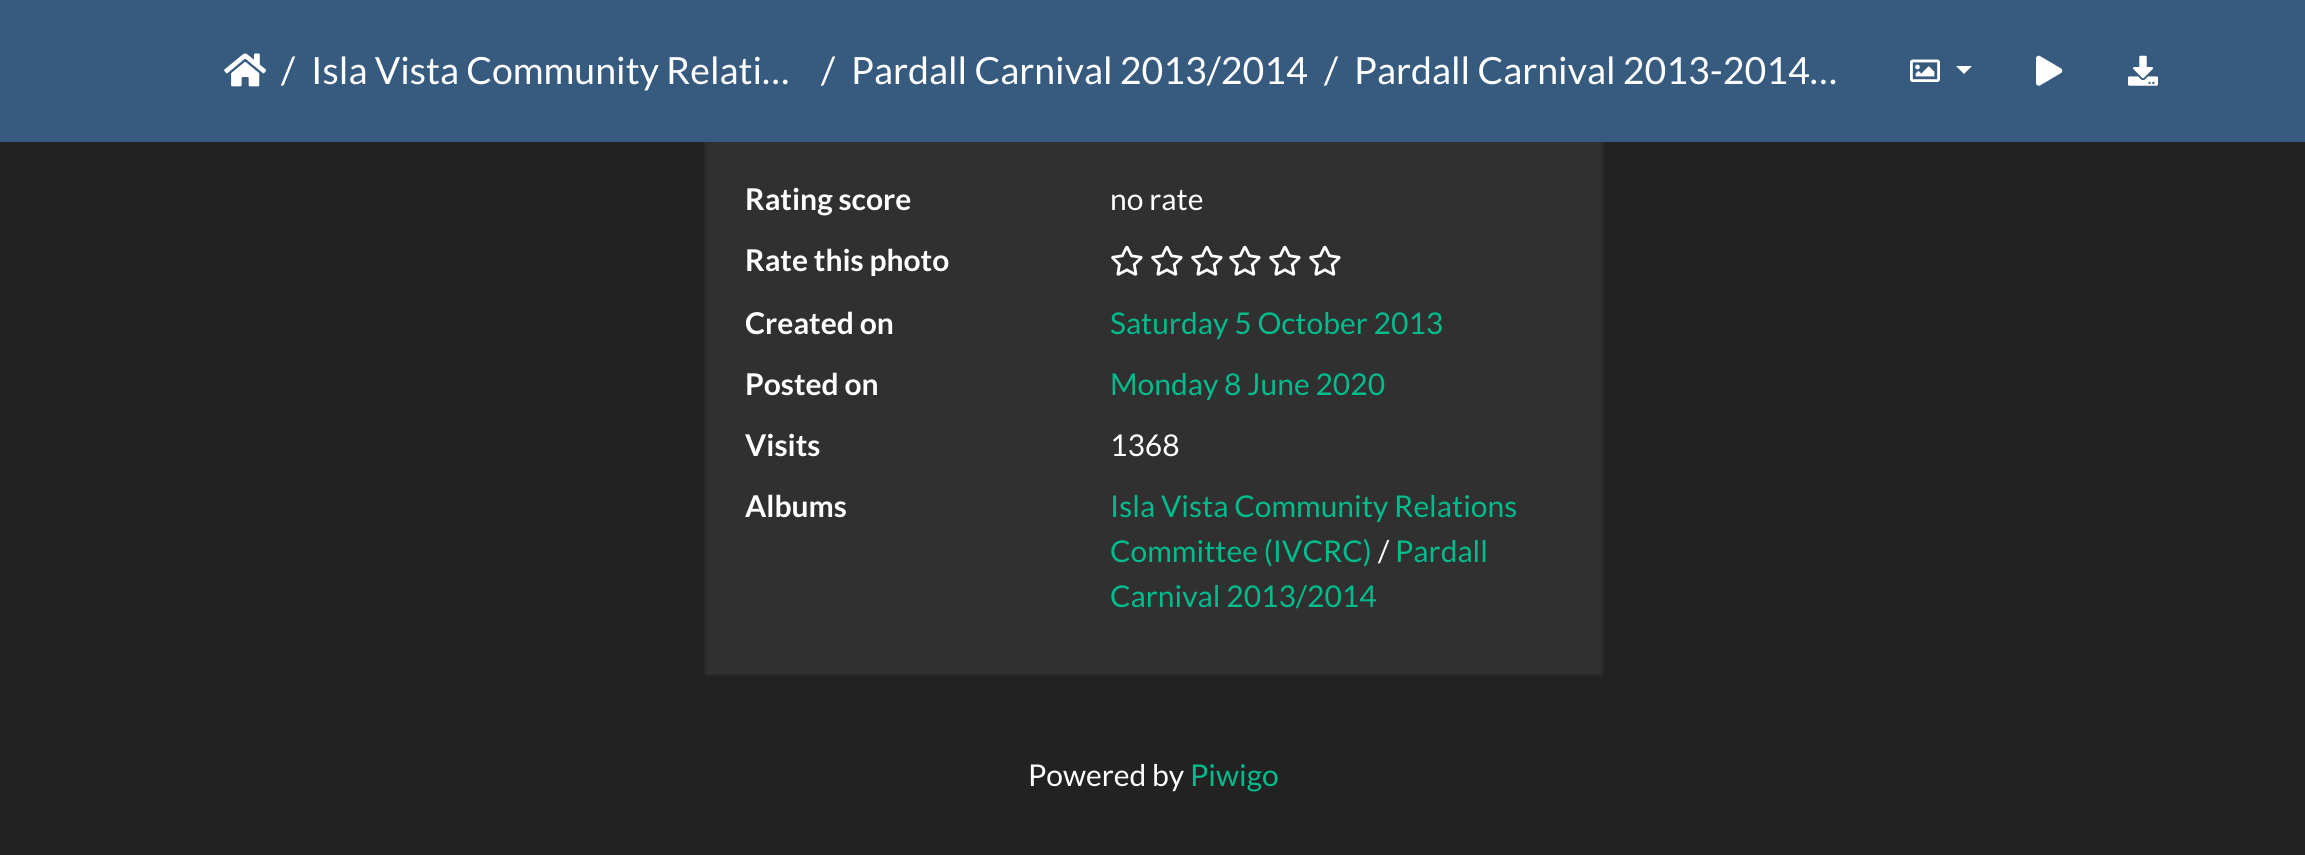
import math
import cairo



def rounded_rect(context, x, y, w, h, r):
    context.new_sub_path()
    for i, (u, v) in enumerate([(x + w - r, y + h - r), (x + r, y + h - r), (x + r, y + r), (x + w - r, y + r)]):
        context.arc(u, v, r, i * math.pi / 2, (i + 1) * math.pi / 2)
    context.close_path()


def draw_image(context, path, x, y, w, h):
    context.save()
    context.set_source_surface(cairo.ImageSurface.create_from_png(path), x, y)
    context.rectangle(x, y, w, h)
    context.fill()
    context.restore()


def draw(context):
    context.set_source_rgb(34 / 255, 34 / 255, 34 / 255)
    context.paint()
    context.set_source_rgb(48 / 255, 48 / 255, 48 / 255)
    rounded_rect(context, 704, 64, 900, 612, 4)
    context.fill()
    rounded_rect(context, 705, 65, 898, 610, 3)
    context.set_source_rgba(0, 0, 0, 0.12)
    context.stroke()
    context.set_source_rgb(55 / 255, 90 / 255, 127 / 255)
    context.rectangle(0, 0, 2305, 142)
    context.fill()
    draw_image(context, "images/1.png", 224, 53, 42, 34)
    draw_image(context, "images/2.png", 1910, 59, 30, 23)
    context.set_source_rgb(1, 1, 1)
    context.new_path()
    context.move_to(1956, 66)
    context.line_to(1972, 66)
    context.line_to(1964, 74)
    context.close_path()
    context.fill()
    draw_image(context, "images/3.png", 2036, 55, 27, 31)
    draw_image(context, "images/4.png", 2128, 55, 30, 31)
    draw_image(context, "images/5.png", 1111, 245, 32, 31)
    draw_image(context, "images/5.png", 1151, 245, 32, 31)
    draw_image(context, "images/5.png", 1191, 245, 32, 31)
    draw_image(context, "images/5.png", 1229, 245, 32, 31)
    draw_image(context, "images/5.png", 1269, 245, 32, 31)
    draw_image(context, "images/5.png", 1309, 245, 32, 31)
    context.select_font_face("Lato")
    context.set_font_size(37.5)
    context.move_to(281, 84)
    context.show_text("/")
    context.move_to(311, 84)
    context.show_text("Isla Vista Community Relati…")
    context.move_to(821, 84)
    context.show_text("/")
    context.move_to(851, 84)
    context.show_text("Pardall Carnival 2013/2014")
    context.move_to(1324, 84)
    context.show_text("/")
    context.move_to(1354, 84)
    context.show_text("Pardall Carnival 2013-2014…")
    context.select_font_face("Lato", cairo.FontSlant.NORMAL, cairo.FontWeight.BOLD)
    context.set_font_size(30)
    context.move_to(745, 210)
    context.show_text("Rating score")
    context.select_font_face("Lato")
    context.move_to(1110, 210)
    context.show_text("no rate")
    context.select_font_face("Lato", cairo.FontSlant.NORMAL, cairo.FontWeight.BOLD)
    context.move_to(745, 271)
    context.show_text("Rate this photo")
    context.move_to(745, 334)
    context.show_text("Created on")
    context.select_font_face("Lato")
    context.set_source_rgb(0, 188 / 255, 140 / 255)
    context.move_to(1110, 334)
    context.show_text("Saturday 5 October 2013")
    context.select_font_face("Lato", cairo.FontSlant.NORMAL, cairo.FontWeight.BOLD)
    context.set_source_rgb(1, 1, 1)
    context.move_to(745, 395)
    context.show_text("Posted on")
    context.select_font_face("Lato")
    context.set_source_rgb(0, 188 / 255, 140 / 255)
    context.move_to(1110, 395)
    context.show_text("Monday 8 June 2020")
    context.select_font_face("Lato", cairo.FontSlant.NORMAL, cairo.FontWeight.BOLD)
    context.set_source_rgb(1, 1, 1)
    context.move_to(745, 456)
    context.show_text("Visits")
    context.select_font_face("Lato")
    context.move_to(1110, 456)
    context.show_text("1368")
    context.select_font_face("Lato", cairo.FontSlant.NORMAL, cairo.FontWeight.BOLD)
    context.move_to(745, 517)
    context.show_text("Albums")
    context.select_font_face("Lato")
    context.set_source_rgb(0, 188 / 255, 140 / 255)
    context.move_to(1110, 517)
    context.show_text("Isla Vista Community Relations")
    context.move_to(1110, 562)
    context.show_text("Committee (IVCRC)")
    context.set_source_rgb(1, 1, 1)
    context.move_to(1378, 562)
    context.show_text("/")
    context.set_source_rgb(0, 188 / 255, 140 / 255)
    context.move_to(1395, 562)
    context.show_text("Pardall")
    context.move_to(1110, 607)
    context.show_text("Carnival 2013/2014")
    context.set_source_rgb(1, 1, 1)
    context.move_to(1028, 786)
    context.show_text("Powered by")
    context.set_source_rgb(0, 188 / 255, 140 / 255)
    context.move_to(1190, 786)
    context.show_text("Piwigo")


surface = cairo.ImageSurface(cairo.Format.RGB24, 2305, 855)
context = cairo.Context(surface)
options = cairo.FontOptions()
options.set_hint_metrics(cairo.HintMetrics.OFF)
options.set_hint_style(cairo.HintStyle.NONE)
context.set_font_options(options)
context.set_miter_limit(4)
draw(context)
surface.write_to_png("out.png")
